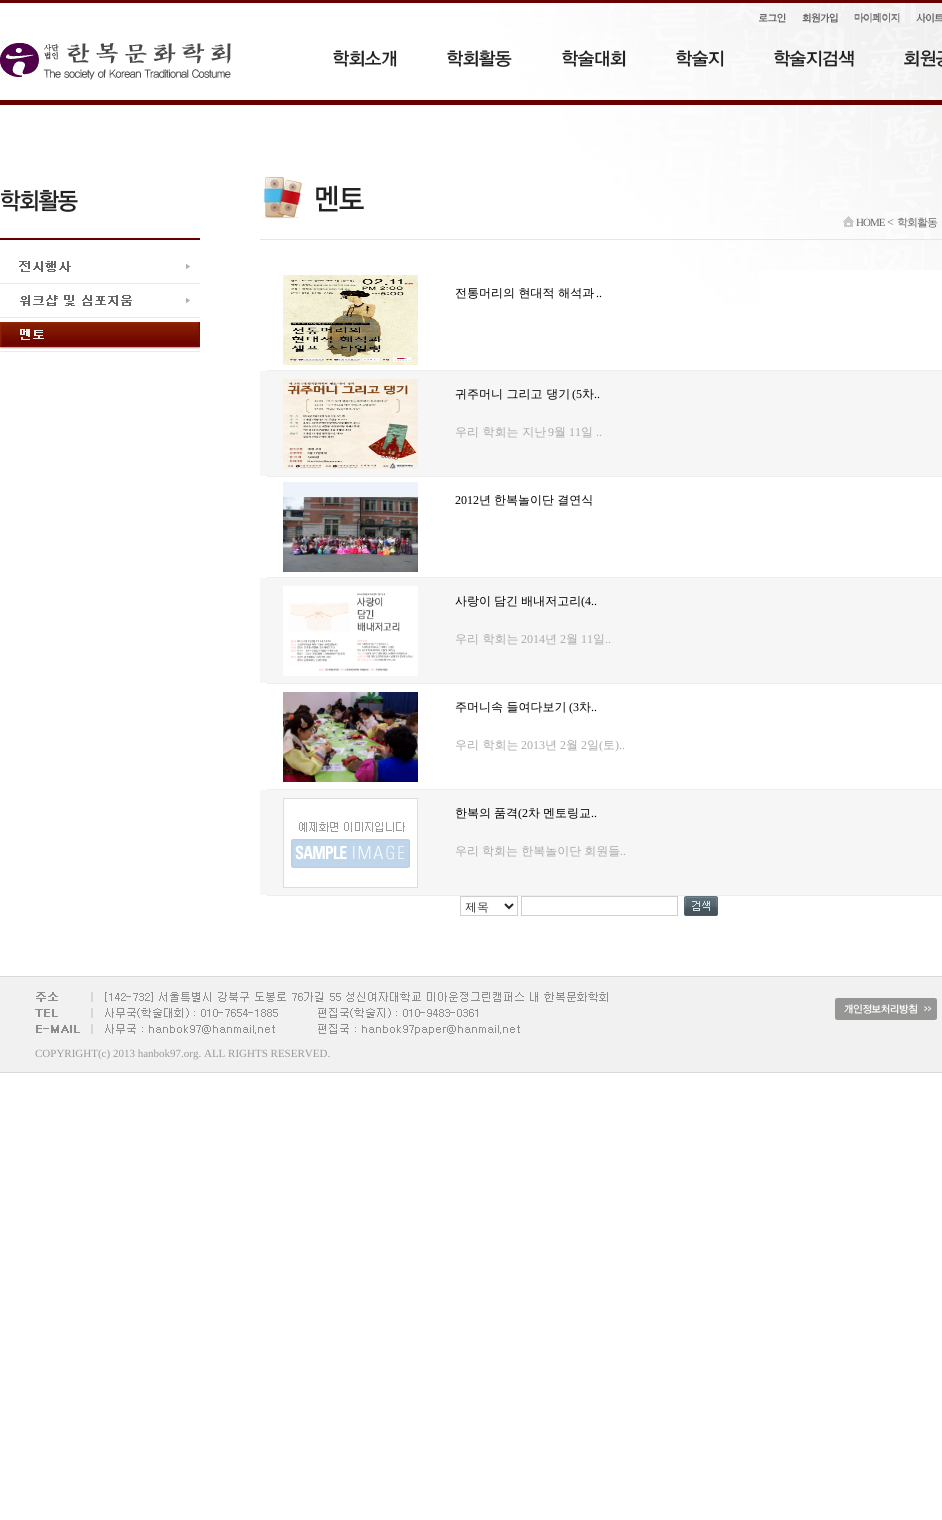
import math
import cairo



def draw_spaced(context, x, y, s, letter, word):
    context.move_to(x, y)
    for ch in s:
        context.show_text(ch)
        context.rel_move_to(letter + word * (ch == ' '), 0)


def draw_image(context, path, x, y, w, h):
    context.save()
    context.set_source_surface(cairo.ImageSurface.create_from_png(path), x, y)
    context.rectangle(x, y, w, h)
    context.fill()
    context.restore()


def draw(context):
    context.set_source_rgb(1, 1, 1)
    context.paint()
    draw_image(context, "images/1.png", 0, 0, 942, 306)
    draw_image(context, "images/2.png", 759, 13, 27, 10)
    draw_image(context, "images/3.png", 802, 13, 36, 10)
    draw_image(context, "images/4.png", 854, 13, 46, 10)
    draw_image(context, "images/5.png", 916, 13, 26, 10)
    draw_image(context, "images/6.png", 0, 43, 231, 37)
    draw_image(context, "images/7.png", 333, 50, 64, 17)
    draw_image(context, "images/8.png", 447, 50, 65, 17)
    draw_image(context, "images/9.png", 562, 50, 64, 17)
    draw_image(context, "images/10.png", 676, 50, 48, 17)
    draw_image(context, "images/11.png", 774, 50, 80, 17)
    draw_image(context, "images/12.png", 904, 50, 38, 17)
    context.set_source_rgb(104 / 255, 0, 0)
    context.rectangle(0, 238, 200, 2)
    context.fill()
    draw_image(context, "images/13.png", 0, 189, 78, 23)
    draw_image(context, "images/14.png", 0, 261, 200, 23)
    draw_image(context, "images/15.png", 0, 295, 200, 23)
    draw_image(context, "images/16.png", 0, 322, 200, 30)
    draw_image(context, "images/17.png", 260, 105, 682, 135)
    draw_image(context, "images/18.png", 316, 185, 48, 27)
    draw_image(context, "images/19.png", 843, 216, 11, 11)
    context.set_source_rgb(1, 1, 1)
    context.rectangle(759, 270, 183, 36)
    context.fill()
    draw_image(context, "images/20.png", 283, 275, 135, 90)
    context.set_source_rgb(238 / 255, 238 / 255, 238 / 255)
    context.rectangle(267, 370, 675, 1)
    context.fill()
    context.set_source_rgb(246 / 255, 246 / 255, 246 / 255)
    context.rectangle(260, 371, 682, 105)
    context.fill()
    draw_image(context, "images/21.png", 283, 379, 135, 90)
    context.set_source_rgb(238 / 255, 238 / 255, 238 / 255)
    context.rectangle(267, 476, 675, 1)
    context.fill()
    draw_image(context, "images/22.png", 283, 482, 135, 90)
    context.rectangle(267, 577, 675, 1)
    context.fill()
    context.set_source_rgb(246 / 255, 246 / 255, 246 / 255)
    context.rectangle(260, 578, 682, 105)
    context.fill()
    draw_image(context, "images/23.png", 283, 586, 135, 90)
    context.set_source_rgb(238 / 255, 238 / 255, 238 / 255)
    context.rectangle(267, 683, 675, 1)
    context.fill()
    draw_image(context, "images/24.png", 283, 692, 135, 90)
    context.rectangle(267, 789, 675, 1)
    context.fill()
    context.set_source_rgb(246 / 255, 246 / 255, 246 / 255)
    context.rectangle(260, 790, 682, 105)
    context.fill()
    draw_image(context, "images/25.png", 283, 798, 135, 90)
    context.set_source_rgb(238 / 255, 238 / 255, 238 / 255)
    context.rectangle(267, 895, 675, 1)
    context.fill()
    context.rectangle(460.5, 896.5, 57, 19)
    context.set_source_rgb(207 / 255, 207 / 255, 207 / 255)
    context.set_line_width(1)
    context.stroke()
    context.new_path()
    context.move_to(505, 904)
    context.line_to(509, 908)
    context.line_to(513, 904)
    context.set_source_rgb(34 / 255, 34 / 255, 34 / 255)
    context.set_line_width(2)
    context.stroke()
    context.rectangle(521.5, 896.5, 156, 19)
    context.set_source_rgb(207 / 255, 207 / 255, 207 / 255)
    context.set_line_width(1)
    context.stroke()
    draw_image(context, "images/26.png", 684, 896, 34, 20)
    context.set_source_rgb(241 / 255, 241 / 255, 241 / 255)
    context.rectangle(0, 977, 942, 95)
    context.fill()
    context.set_source_rgb(217 / 255, 217 / 255, 217 / 255)
    context.rectangle(0, 976, 942, 1)
    context.fill()
    context.rectangle(0, 1072, 942, 1)
    context.fill()
    draw_image(context, "images/27.png", 35, 992, 573, 43)
    draw_image(context, "images/28.png", 835, 998, 102, 22)
    context.select_font_face("Liberation Serif")
    context.set_font_size(11)
    context.set_source_rgb(102 / 255, 102 / 255, 102 / 255)
    draw_spaced(context, 856, 226, "HOME", -1, 0)
    context.set_font_size(12)
    context.move_to(887, 226)
    context.show_text("<")
    context.select_font_face("WenQuanYi Zen Hei Medium")
    context.set_font_size(11)
    draw_spaced(context, 897, 226, "학회활동", -1, 0)
    context.set_font_size(12)
    context.set_source_rgb(0, 0, 0)
    context.move_to(455, 297)
    context.show_text("전통머리의 현대적 해석과")
    context.select_font_face("Liberation Serif")
    context.move_to(596, 297)
    context.show_text("..")
    context.select_font_face("WenQuanYi Zen Hei Medium")
    context.move_to(455, 398)
    context.show_text("귀주머니 그리고 댕기")
    context.select_font_face("Liberation Serif")
    context.move_to(572, 398)
    context.show_text("(5")
    context.select_font_face("WenQuanYi Zen Hei Medium")
    context.move_to(582, 398)
    context.show_text("차")
    context.select_font_face("Liberation Serif")
    context.move_to(594, 398)
    context.show_text("..")
    context.select_font_face("WenQuanYi Zen Hei Medium")
    context.set_source_rgb(170 / 255, 170 / 255, 170 / 255)
    context.move_to(455, 436)
    context.show_text("우리 학회는 지난")
    context.select_font_face("Liberation Serif")
    context.move_to(548, 436)
    context.show_text("9")
    context.select_font_face("WenQuanYi Zen Hei Medium")
    context.move_to(554, 436)
    context.show_text("월")
    context.select_font_face("Liberation Serif")
    context.move_to(569, 436)
    context.show_text("11")
    context.select_font_face("WenQuanYi Zen Hei Medium")
    context.move_to(581, 436)
    context.show_text("일")
    context.select_font_face("Liberation Serif")
    context.move_to(596, 436)
    context.show_text("..")
    context.set_source_rgb(0, 0, 0)
    context.move_to(455, 504)
    context.show_text("2012")
    context.select_font_face("WenQuanYi Zen Hei Medium")
    draw_spaced(context, 479, 504, "년 한복놀이단 결연식", 0, -0.5)
    draw_spaced(context, 455, 605, "사랑이 담긴 배내저고리", 0, -0.5)
    context.select_font_face("Liberation Serif")
    context.move_to(581, 605)
    context.show_text("(4..")
    context.select_font_face("WenQuanYi Zen Hei Medium")
    context.set_source_rgb(170 / 255, 170 / 255, 170 / 255)
    context.move_to(455, 643)
    context.show_text("우리 학회는")
    context.select_font_face("Liberation Serif")
    context.move_to(521, 643)
    context.show_text("2014")
    context.select_font_face("WenQuanYi Zen Hei Medium")
    context.move_to(545, 643)
    context.show_text("년")
    context.select_font_face("Liberation Serif")
    context.move_to(560, 643)
    context.show_text("2")
    context.select_font_face("WenQuanYi Zen Hei Medium")
    context.move_to(566, 643)
    context.show_text("월")
    context.select_font_face("Liberation Serif")
    context.move_to(581, 643)
    context.show_text("11")
    context.select_font_face("WenQuanYi Zen Hei Medium")
    context.move_to(593, 643)
    context.show_text("일")
    context.select_font_face("Liberation Serif")
    context.move_to(605, 643)
    context.show_text("..")
    context.select_font_face("WenQuanYi Zen Hei Medium")
    context.set_source_rgb(0, 0, 0)
    context.move_to(455, 711)
    context.show_text("주머니속 들여다보기")
    context.select_font_face("Liberation Serif")
    context.move_to(569, 711)
    context.show_text("(3")
    context.select_font_face("WenQuanYi Zen Hei Medium")
    context.move_to(579, 711)
    context.show_text("차")
    context.select_font_face("Liberation Serif")
    context.move_to(591, 711)
    context.show_text("..")
    context.select_font_face("WenQuanYi Zen Hei Medium")
    context.set_source_rgb(170 / 255, 170 / 255, 170 / 255)
    context.move_to(455, 749)
    context.show_text("우리 학회는")
    context.select_font_face("Liberation Serif")
    context.move_to(521, 749)
    context.show_text("2013")
    context.select_font_face("WenQuanYi Zen Hei Medium")
    context.move_to(545, 749)
    context.show_text("년")
    context.select_font_face("Liberation Serif")
    context.move_to(560, 749)
    context.show_text("2")
    context.select_font_face("WenQuanYi Zen Hei Medium")
    context.move_to(566, 749)
    context.show_text("월")
    context.select_font_face("Liberation Serif")
    context.move_to(581, 749)
    context.show_text("2")
    context.select_font_face("WenQuanYi Zen Hei Medium")
    context.move_to(587, 749)
    context.show_text("일")
    context.select_font_face("Liberation Serif")
    context.move_to(599, 749)
    context.show_text("(")
    context.select_font_face("WenQuanYi Zen Hei Medium")
    context.move_to(603, 749)
    context.show_text("토")
    context.select_font_face("Liberation Serif")
    context.move_to(615, 749)
    context.show_text(")..")
    context.select_font_face("WenQuanYi Zen Hei Medium")
    context.set_source_rgb(0, 0, 0)
    draw_spaced(context, 455, 817, "한복의 품격", 0, -0.5)
    context.select_font_face("Liberation Serif")
    context.move_to(518, 817)
    context.show_text("(2")
    context.select_font_face("WenQuanYi Zen Hei Medium")
    draw_spaced(context, 528, 817, "차 멘토링교", 0, -0.5)
    context.select_font_face("Liberation Serif")
    context.move_to(591, 817)
    context.show_text("..")
    context.select_font_face("WenQuanYi Zen Hei Medium")
    context.set_source_rgb(170 / 255, 170 / 255, 170 / 255)
    draw_spaced(context, 455, 855, "우리 학회는 한복놀이단 회원들", 0, -0.5)
    context.select_font_face("Liberation Serif")
    context.move_to(620, 855)
    context.show_text("..")
    context.select_font_face("Dotum")
    context.set_source_rgb(34 / 255, 34 / 255, 34 / 255)
    context.move_to(465, 912)
    context.show_text("제목")
    context.select_font_face("Liberation Serif")
    context.set_font_size(11)
    context.set_source_rgb(153 / 255, 153 / 255, 153 / 255)
    context.move_to(35, 1057)
    context.show_text("COPYRIGHT(c) 2013 hanbok97.org. ALL RIGHTS RESERVED.")


surface = cairo.ImageSurface(cairo.Format.RGB24, 942, 1520)
context = cairo.Context(surface)
options = cairo.FontOptions()
options.set_hint_metrics(cairo.HintMetrics.OFF)
options.set_hint_style(cairo.HintStyle.NONE)
context.set_font_options(options)
context.set_miter_limit(4)
draw(context)
surface.write_to_png("out.png")
